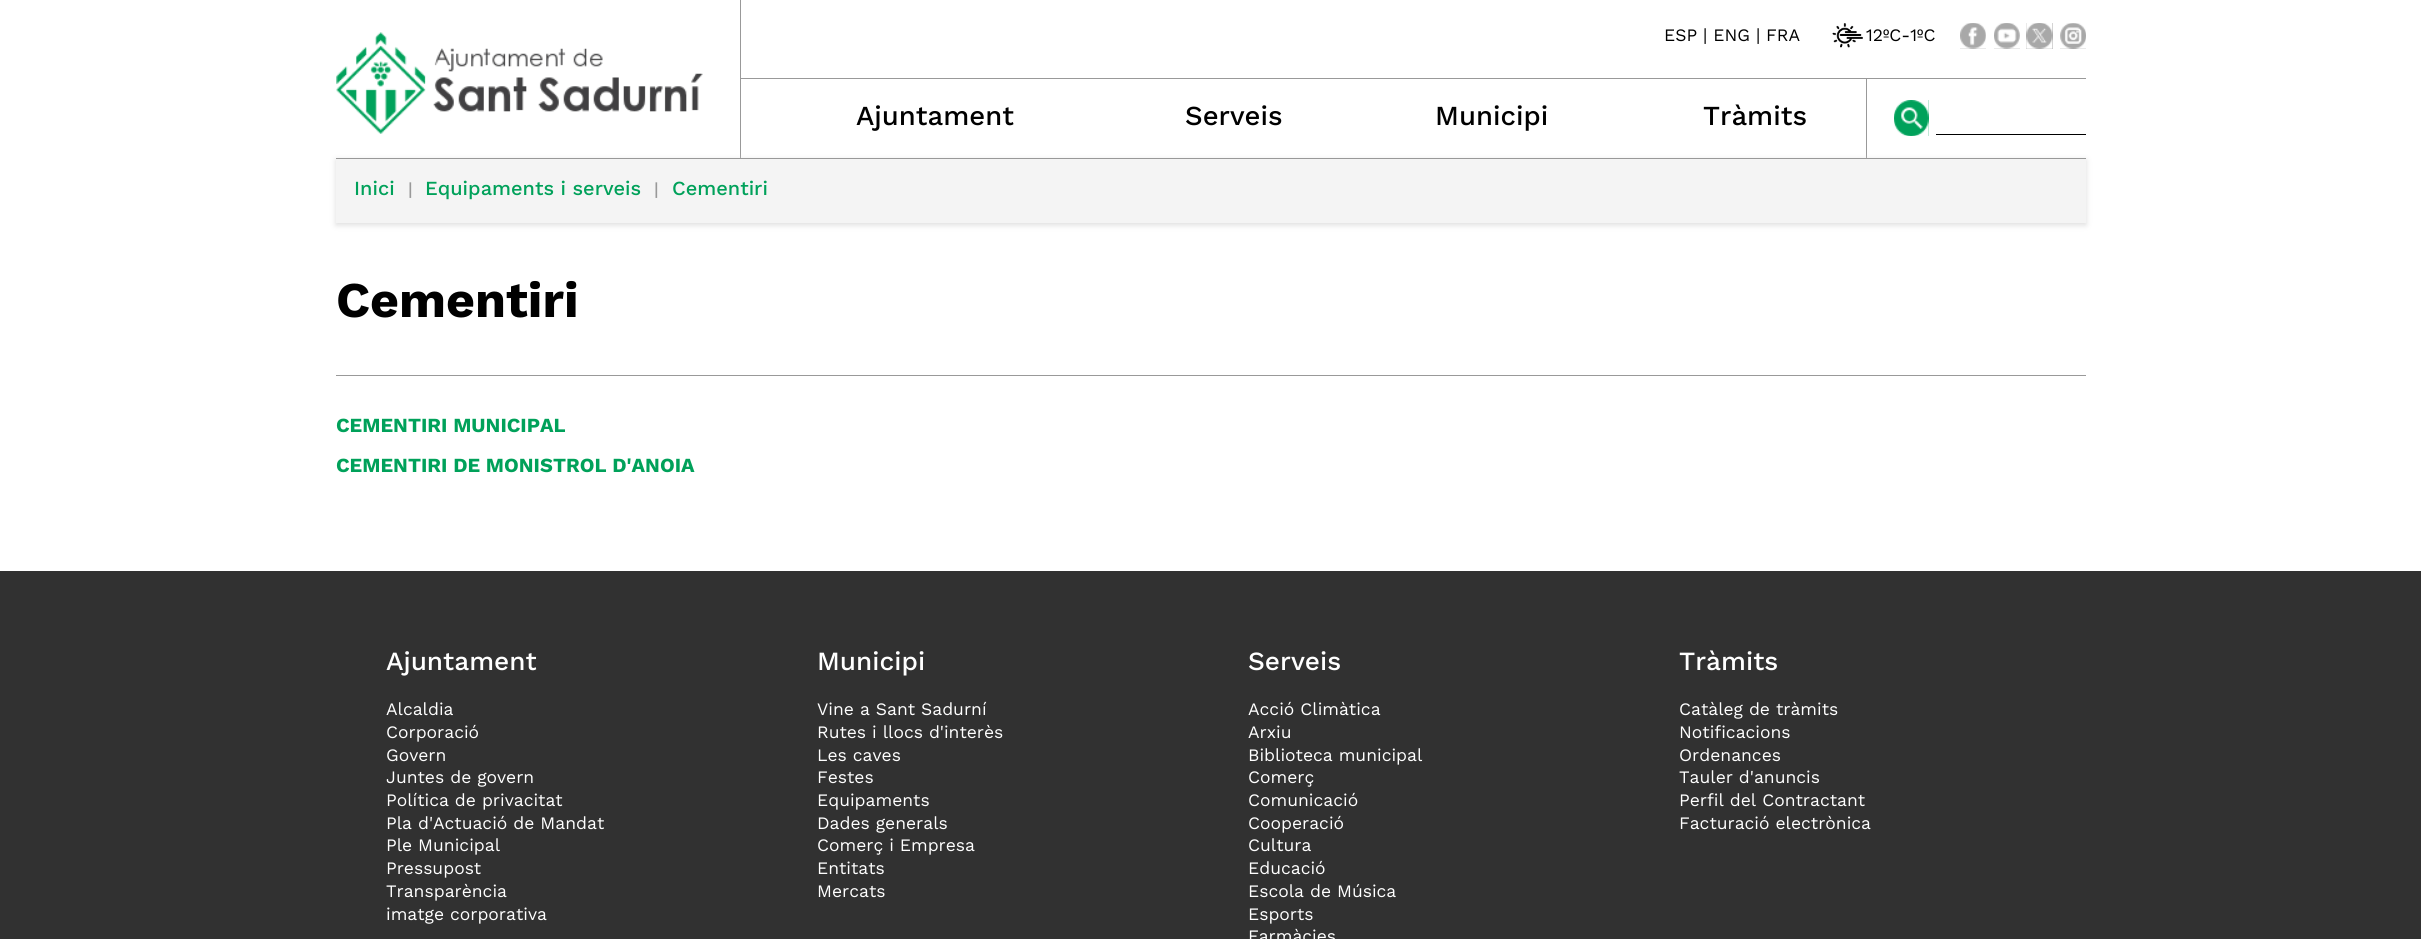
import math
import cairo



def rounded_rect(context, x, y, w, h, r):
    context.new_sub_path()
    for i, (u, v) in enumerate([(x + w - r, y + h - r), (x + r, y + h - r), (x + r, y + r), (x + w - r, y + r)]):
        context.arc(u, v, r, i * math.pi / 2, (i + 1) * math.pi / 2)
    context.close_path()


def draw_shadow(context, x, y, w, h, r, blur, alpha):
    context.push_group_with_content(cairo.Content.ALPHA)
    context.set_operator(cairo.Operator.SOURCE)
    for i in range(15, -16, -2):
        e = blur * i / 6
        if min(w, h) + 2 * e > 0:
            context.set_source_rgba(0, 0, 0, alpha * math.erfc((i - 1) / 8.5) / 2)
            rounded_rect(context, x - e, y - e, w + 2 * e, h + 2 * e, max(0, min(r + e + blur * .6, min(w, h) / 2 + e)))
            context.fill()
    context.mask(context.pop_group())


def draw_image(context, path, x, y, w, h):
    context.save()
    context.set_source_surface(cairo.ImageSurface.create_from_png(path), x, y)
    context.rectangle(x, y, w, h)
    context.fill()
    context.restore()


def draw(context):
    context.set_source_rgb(1, 1, 1)
    context.paint()
    context.set_source_rgb(153 / 255, 153 / 255, 153 / 255)
    context.rectangle(740, 0, 1, 158)
    context.fill()
    draw_image(context, "images/1.png", 336, 32, 367, 102)
    context.rectangle(741, 78, 1345, 1)
    context.fill()
    draw_image(context, "images/2.png", 1832, 23, 31, 25)
    context.set_source_rgb(168 / 255, 168 / 255, 168 / 255)
    context.rectangle(1960, 23, 26, 26)
    context.fill()
    draw_image(context, "images/3.png", 1960, 23, 26, 26)
    context.rectangle(1994, 23, 26, 26)
    context.fill()
    draw_image(context, "images/4.png", 1994, 23, 26, 26)
    context.rectangle(2026, 23, 27, 26)
    context.fill()
    draw_image(context, "images/5.png", 2026, 23, 27, 26)
    context.rectangle(2060, 23, 26, 26)
    context.fill()
    draw_image(context, "images/6.png", 2060, 23, 26, 26)
    context.set_source_rgb(153 / 255, 153 / 255, 153 / 255)
    context.rectangle(1866, 79, 1, 79)
    context.fill()
    context.set_source_rgb(0, 161 / 255, 90 / 255)
    context.rectangle(1894, 100, 35, 36)
    context.fill()
    draw_image(context, "images/7.png", 1894, 100, 35, 36)
    context.set_source_rgb(0, 0, 0)
    context.rectangle(1936, 134, 150, 1)
    context.fill()
    context.set_source_rgb(221 / 255, 221 / 255, 221 / 255)
    draw_shadow(context, 336, 160, 1750, 65, 0, 3, 1)
    context.set_source_rgb(244 / 255, 244 / 255, 244 / 255)
    context.rectangle(336, 159, 1750, 64)
    context.fill()
    context.set_source_rgb(153 / 255, 153 / 255, 153 / 255)
    context.rectangle(336, 158, 1750, 1)
    context.fill()
    context.rectangle(336, 375, 1750, 1)
    context.fill()
    context.set_source_rgb(49 / 255, 49 / 255, 49 / 255)
    context.rectangle(0, 571, 2421, 368)
    context.fill()
    context.select_font_face("Work Sans")
    context.set_font_size(17.5)
    context.set_source_rgb(0, 0, 0)
    context.move_to(1664, 41)
    context.show_text("ESP | ENG | FRA")
    context.move_to(1866, 41)
    context.show_text("12ºC-1ºC")
    context.select_font_face("Work Sans Medium")
    context.set_font_size(27.5)
    context.move_to(856, 125)
    context.show_text("Ajuntament")
    context.move_to(1185, 125)
    context.show_text("Serveis")
    context.move_to(1435, 125)
    context.show_text("Municipi")
    context.move_to(1703, 125)
    context.show_text("Tràmits")
    context.set_font_size(20)
    context.set_source_rgb(0, 161 / 255, 90 / 255)
    context.move_to(354, 195)
    context.show_text("Inici")
    context.set_font_size(17.5)
    context.set_source_rgb(153 / 255, 153 / 255, 153 / 255)
    context.move_to(408, 195)
    context.show_text("|")
    context.set_font_size(20)
    context.set_source_rgb(0, 161 / 255, 90 / 255)
    context.move_to(425, 195)
    context.show_text("Equipaments i serveis")
    context.set_font_size(17.5)
    context.set_source_rgb(153 / 255, 153 / 255, 153 / 255)
    context.move_to(654, 195)
    context.show_text("|")
    context.set_font_size(20)
    context.set_source_rgb(0, 161 / 255, 90 / 255)
    context.move_to(672, 195)
    context.show_text("Cementiri")
    context.select_font_face("Work Sans", cairo.FontSlant.NORMAL, cairo.FontWeight.BOLD)
    context.set_font_size(50)
    context.set_source_rgb(0, 0, 0)
    context.move_to(336, 317)
    context.show_text("Cementiri")
    context.set_font_size(20)
    context.set_source_rgb(0, 161 / 255, 90 / 255)
    context.move_to(336, 432)
    context.show_text("CEMENTIRI MUNICIPAL")
    context.move_to(336, 472)
    context.show_text("CEMENTIRI DE MONISTROL D'ANOIA")
    context.select_font_face("Work Sans Medium")
    context.set_font_size(26.25)
    context.set_source_rgb(1, 1, 1)
    context.move_to(386, 670)
    context.show_text("Ajuntament")
    context.select_font_face("Work Sans")
    context.set_font_size(17.5)
    context.move_to(386, 715)
    context.show_text("Alcaldia")
    context.move_to(386, 738)
    context.show_text("Corporació")
    context.move_to(386, 761)
    context.show_text("Govern")
    context.move_to(386, 783)
    context.show_text("Juntes de govern")
    context.move_to(386, 806)
    context.show_text("Política de privacitat")
    context.move_to(386, 829)
    context.show_text("Pla d'Actuació de Mandat")
    context.move_to(386, 851)
    context.show_text("Ple Municipal")
    context.move_to(386, 874)
    context.show_text("Pressupost")
    context.move_to(386, 897)
    context.show_text("Transparència")
    context.move_to(386, 920)
    context.show_text("imatge corporativa")
    context.select_font_face("Work Sans Medium")
    context.set_font_size(26.25)
    context.move_to(817, 670)
    context.show_text("Municipi")
    context.select_font_face("Work Sans")
    context.set_font_size(17.5)
    context.move_to(817, 715)
    context.show_text("Vine a Sant Sadurní")
    context.move_to(817, 738)
    context.show_text("Rutes i llocs d'interès")
    context.move_to(817, 761)
    context.show_text("Les caves")
    context.move_to(817, 783)
    context.show_text("Festes")
    context.move_to(817, 806)
    context.show_text("Equipaments")
    context.move_to(817, 829)
    context.show_text("Dades generals")
    context.move_to(817, 851)
    context.show_text("Comerç i Empresa")
    context.move_to(817, 874)
    context.show_text("Entitats")
    context.move_to(817, 897)
    context.show_text("Mercats")
    context.select_font_face("Work Sans Medium")
    context.set_font_size(26.25)
    context.move_to(1248, 670)
    context.show_text("Serveis")
    context.select_font_face("Work Sans")
    context.set_font_size(17.5)
    context.move_to(1248, 715)
    context.show_text("Acció Climàtica")
    context.move_to(1248, 738)
    context.show_text("Arxiu")
    context.move_to(1248, 761)
    context.show_text("Biblioteca municipal")
    context.move_to(1248, 783)
    context.show_text("Comerç")
    context.move_to(1248, 806)
    context.show_text("Comunicació")
    context.move_to(1248, 829)
    context.show_text("Cooperació")
    context.move_to(1248, 851)
    context.show_text("Cultura")
    context.move_to(1248, 874)
    context.show_text("Educació")
    context.move_to(1248, 897)
    context.show_text("Escola de Música")
    context.move_to(1248, 920)
    context.show_text("Esports")
    context.move_to(1248, 942)
    context.show_text("Farmàcies")
    context.select_font_face("Work Sans Medium")
    context.set_font_size(26.25)
    context.move_to(1679, 670)
    context.show_text("Tràmits")
    context.select_font_face("Work Sans")
    context.set_font_size(17.5)
    context.move_to(1679, 715)
    context.show_text("Catàleg de tràmits")
    context.move_to(1679, 738)
    context.show_text("Notificacions")
    context.move_to(1679, 761)
    context.show_text("Ordenances")
    context.move_to(1679, 783)
    context.show_text("Tauler d'anuncis")
    context.move_to(1679, 806)
    context.show_text("Perfil del Contractant")
    context.move_to(1679, 829)
    context.show_text("Facturació electrònica")


surface = cairo.ImageSurface(cairo.Format.RGB24, 2421, 939)
context = cairo.Context(surface)
options = cairo.FontOptions()
options.set_hint_metrics(cairo.HintMetrics.OFF)
options.set_hint_style(cairo.HintStyle.NONE)
context.set_font_options(options)
context.set_miter_limit(4)
draw(context)
surface.write_to_png("out.png")
